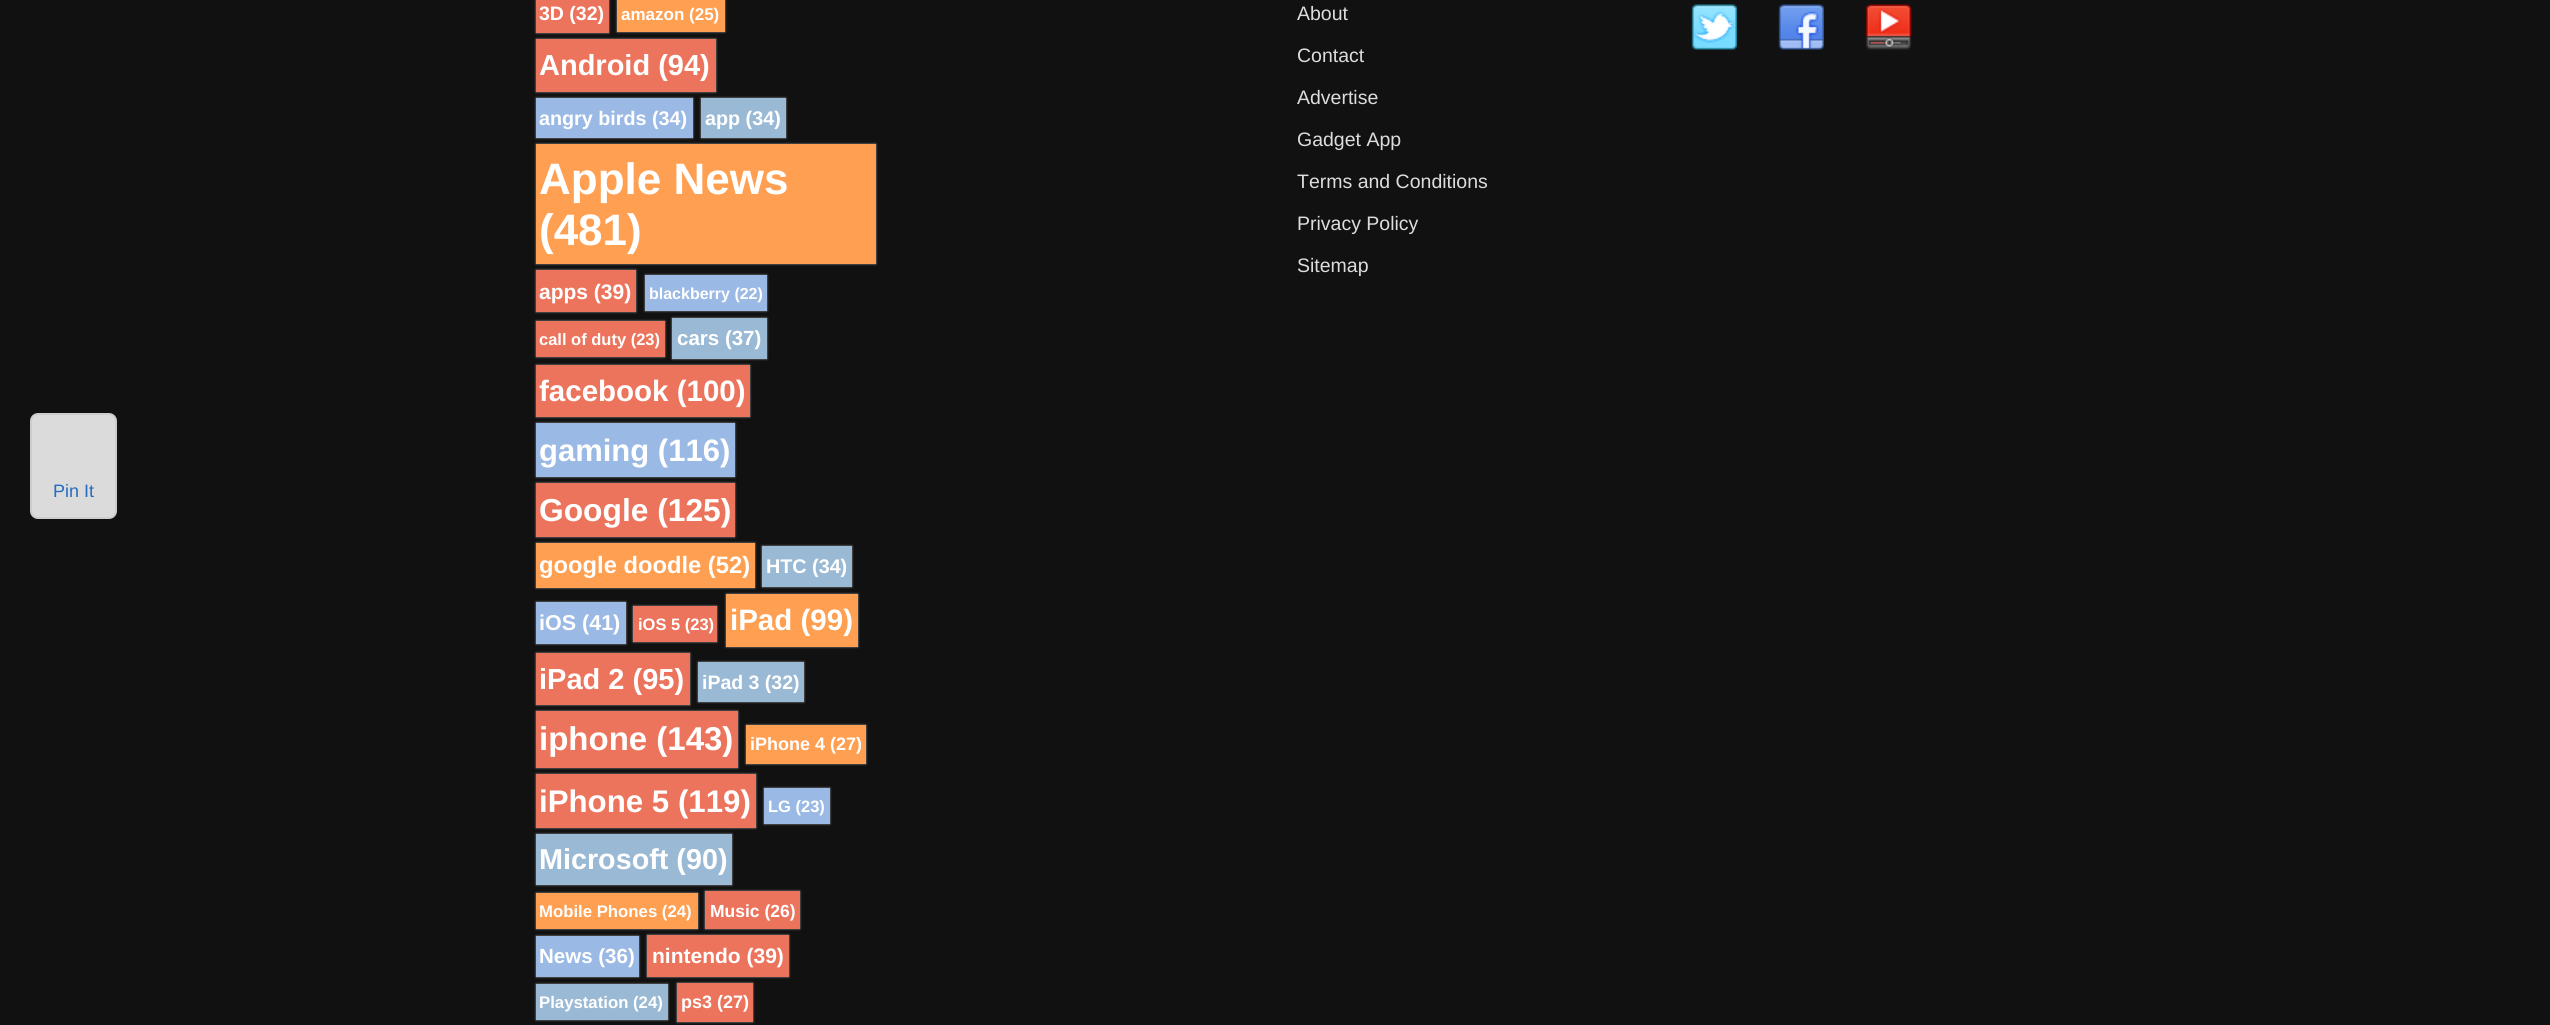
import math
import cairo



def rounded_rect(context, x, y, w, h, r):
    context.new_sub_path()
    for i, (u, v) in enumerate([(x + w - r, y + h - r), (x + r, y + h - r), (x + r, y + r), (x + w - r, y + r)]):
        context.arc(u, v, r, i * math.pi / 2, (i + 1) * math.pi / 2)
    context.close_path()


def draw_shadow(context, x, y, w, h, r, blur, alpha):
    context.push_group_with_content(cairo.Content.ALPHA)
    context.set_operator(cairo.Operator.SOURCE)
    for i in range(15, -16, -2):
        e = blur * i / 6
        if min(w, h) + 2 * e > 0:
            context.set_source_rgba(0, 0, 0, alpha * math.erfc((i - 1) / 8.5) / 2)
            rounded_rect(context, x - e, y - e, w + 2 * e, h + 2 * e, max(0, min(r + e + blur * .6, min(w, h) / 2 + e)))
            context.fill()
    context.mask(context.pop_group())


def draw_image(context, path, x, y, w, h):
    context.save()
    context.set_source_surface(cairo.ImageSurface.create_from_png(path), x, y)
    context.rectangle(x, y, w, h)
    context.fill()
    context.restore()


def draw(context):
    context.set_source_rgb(17 / 255, 17 / 255, 17 / 255)
    context.paint()
    context.set_source_rgb(219 / 255, 219 / 255, 219 / 255)
    rounded_rect(context, 31, 414, 85, 104, 7)
    context.fill_preserve()
    context.set_source_rgb(205 / 255, 205 / 255, 205 / 255)
    context.stroke()
    context.set_source_rgb(153 / 255, 153 / 255, 153 / 255)
    draw_shadow(context, 536, -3, 73, 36, 0, 1, 1)
    context.set_source_rgb(236 / 255, 116 / 255, 92 / 255)
    context.rectangle(536, 0, 73, 33)
    context.fill()
    context.set_source_rgb(153 / 255, 153 / 255, 153 / 255)
    draw_shadow(context, 617, -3, 108, 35, 0, 1, 1)
    context.set_source_rgb(1, 159 / 255, 81 / 255)
    context.rectangle(617, 0, 108, 32)
    context.fill()
    context.set_source_rgb(153 / 255, 153 / 255, 153 / 255)
    draw_shadow(context, 536, 39, 180, 53, 0, 1, 1)
    context.set_source_rgb(236 / 255, 116 / 255, 92 / 255)
    context.rectangle(536, 39, 180, 53)
    context.fill()
    context.set_source_rgb(153 / 255, 153 / 255, 153 / 255)
    draw_shadow(context, 536, 98, 157, 40, 0, 1, 1)
    context.set_source_rgb(154 / 255, 185 / 255, 228 / 255)
    context.rectangle(536, 98, 157, 40)
    context.fill()
    context.set_source_rgb(153 / 255, 153 / 255, 153 / 255)
    draw_shadow(context, 701, 98, 85, 40, 0, 1, 1)
    context.set_source_rgb(154 / 255, 185 / 255, 212 / 255)
    context.rectangle(701, 98, 85, 40)
    context.fill()
    context.set_source_rgb(153 / 255, 153 / 255, 153 / 255)
    draw_shadow(context, 536, 144, 340, 120, 0, 1, 1)
    context.set_source_rgb(1, 159 / 255, 81 / 255)
    context.rectangle(536, 144, 340, 120)
    context.fill()
    context.set_source_rgb(153 / 255, 153 / 255, 153 / 255)
    draw_shadow(context, 536, 270, 100, 42, 0, 1, 1)
    context.set_source_rgb(236 / 255, 116 / 255, 92 / 255)
    context.rectangle(536, 270, 100, 42)
    context.fill()
    context.set_source_rgb(153 / 255, 153 / 255, 153 / 255)
    draw_shadow(context, 645, 275, 122, 36, 0, 1, 1)
    context.set_source_rgb(154 / 255, 185 / 255, 228 / 255)
    context.rectangle(645, 275, 122, 36)
    context.fill()
    context.set_source_rgb(153 / 255, 153 / 255, 153 / 255)
    draw_shadow(context, 536, 321, 129, 36, 0, 1, 1)
    context.set_source_rgb(236 / 255, 116 / 255, 92 / 255)
    context.rectangle(536, 321, 129, 36)
    context.fill()
    context.set_source_rgb(153 / 255, 153 / 255, 153 / 255)
    draw_shadow(context, 672, 318, 95, 41, 0, 1, 1)
    context.set_source_rgb(154 / 255, 185 / 255, 212 / 255)
    context.rectangle(672, 318, 95, 41)
    context.fill()
    context.set_source_rgb(153 / 255, 153 / 255, 153 / 255)
    draw_shadow(context, 536, 365, 214, 52, 0, 1, 1)
    context.set_source_rgb(236 / 255, 116 / 255, 92 / 255)
    context.rectangle(536, 365, 214, 52)
    context.fill()
    context.set_source_rgb(153 / 255, 153 / 255, 153 / 255)
    draw_shadow(context, 536, 423, 199, 54, 0, 1, 1)
    context.set_source_rgb(154 / 255, 185 / 255, 228 / 255)
    context.rectangle(536, 423, 199, 54)
    context.fill()
    context.set_source_rgb(153 / 255, 153 / 255, 153 / 255)
    draw_shadow(context, 536, 483, 199, 54, 0, 1, 1)
    context.set_source_rgb(236 / 255, 116 / 255, 92 / 255)
    context.rectangle(536, 483, 199, 54)
    context.fill()
    context.set_source_rgb(153 / 255, 153 / 255, 153 / 255)
    draw_shadow(context, 536, 543, 219, 45, 0, 1, 1)
    context.set_source_rgb(1, 159 / 255, 81 / 255)
    context.rectangle(536, 543, 219, 45)
    context.fill()
    context.set_source_rgb(153 / 255, 153 / 255, 153 / 255)
    draw_shadow(context, 762, 546, 90, 41, 0, 1, 1)
    context.set_source_rgb(154 / 255, 185 / 255, 212 / 255)
    context.rectangle(762, 546, 90, 41)
    context.fill()
    context.set_source_rgb(153 / 255, 153 / 255, 153 / 255)
    draw_shadow(context, 536, 602, 90, 42, 0, 1, 1)
    context.set_source_rgb(154 / 255, 185 / 255, 228 / 255)
    context.rectangle(536, 602, 90, 42)
    context.fill()
    context.set_source_rgb(153 / 255, 153 / 255, 153 / 255)
    draw_shadow(context, 633, 606, 84, 36, 0, 1, 1)
    context.set_source_rgb(236 / 255, 116 / 255, 92 / 255)
    context.rectangle(633, 606, 84, 36)
    context.fill()
    context.set_source_rgb(153 / 255, 153 / 255, 153 / 255)
    draw_shadow(context, 726, 594, 132, 53, 0, 1, 1)
    context.set_source_rgb(1, 159 / 255, 81 / 255)
    context.rectangle(726, 594, 132, 53)
    context.fill()
    context.set_source_rgb(153 / 255, 153 / 255, 153 / 255)
    draw_shadow(context, 536, 653, 154, 52, 0, 1, 1)
    context.set_source_rgb(236 / 255, 116 / 255, 92 / 255)
    context.rectangle(536, 653, 154, 52)
    context.fill()
    context.set_source_rgb(153 / 255, 153 / 255, 153 / 255)
    draw_shadow(context, 698, 662, 106, 40, 0, 1, 1)
    context.set_source_rgb(154 / 255, 185 / 255, 212 / 255)
    context.rectangle(698, 662, 106, 40)
    context.fill()
    context.set_source_rgb(153 / 255, 153 / 255, 153 / 255)
    draw_shadow(context, 536, 711, 202, 57, 0, 1, 1)
    context.set_source_rgb(236 / 255, 116 / 255, 92 / 255)
    context.rectangle(536, 711, 202, 57)
    context.fill()
    context.set_source_rgb(153 / 255, 153 / 255, 153 / 255)
    draw_shadow(context, 746, 725, 120, 39, 0, 1, 1)
    context.set_source_rgb(1, 159 / 255, 81 / 255)
    context.rectangle(746, 725, 120, 39)
    context.fill()
    context.set_source_rgb(153 / 255, 153 / 255, 153 / 255)
    draw_shadow(context, 536, 774, 220, 54, 0, 1, 1)
    context.set_source_rgb(236 / 255, 116 / 255, 92 / 255)
    context.rectangle(536, 774, 220, 54)
    context.fill()
    context.set_source_rgb(153 / 255, 153 / 255, 153 / 255)
    draw_shadow(context, 764, 788, 66, 36, 0, 1, 1)
    context.set_source_rgb(154 / 255, 185 / 255, 228 / 255)
    context.rectangle(764, 788, 66, 36)
    context.fill()
    context.set_source_rgb(153 / 255, 153 / 255, 153 / 255)
    draw_shadow(context, 536, 834, 196, 51, 0, 1, 1)
    context.set_source_rgb(154 / 255, 185 / 255, 212 / 255)
    context.rectangle(536, 834, 196, 51)
    context.fill()
    context.set_source_rgb(153 / 255, 153 / 255, 153 / 255)
    draw_shadow(context, 536, 893, 162, 36, 0, 1, 1)
    context.set_source_rgb(1, 159 / 255, 81 / 255)
    context.rectangle(536, 893, 162, 36)
    context.fill()
    context.set_source_rgb(153 / 255, 153 / 255, 153 / 255)
    draw_shadow(context, 705, 891, 95, 38, 0, 1, 1)
    context.set_source_rgb(236 / 255, 116 / 255, 92 / 255)
    context.rectangle(705, 891, 95, 38)
    context.fill()
    context.set_source_rgb(153 / 255, 153 / 255, 153 / 255)
    draw_shadow(context, 536, 936, 103, 41, 0, 1, 1)
    context.set_source_rgb(154 / 255, 185 / 255, 228 / 255)
    context.rectangle(536, 936, 103, 41)
    context.fill()
    context.set_source_rgb(153 / 255, 153 / 255, 153 / 255)
    draw_shadow(context, 647, 935, 142, 42, 0, 1, 1)
    context.set_source_rgb(236 / 255, 116 / 255, 92 / 255)
    context.rectangle(647, 935, 142, 42)
    context.fill()
    context.set_source_rgb(153 / 255, 153 / 255, 153 / 255)
    draw_shadow(context, 536, 984, 132, 36, 0, 1, 1)
    context.set_source_rgb(154 / 255, 185 / 255, 212 / 255)
    context.rectangle(536, 984, 132, 36)
    context.fill()
    context.set_source_rgb(153 / 255, 153 / 255, 153 / 255)
    draw_shadow(context, 677, 983, 76, 39, 0, 1, 1)
    context.set_source_rgb(236 / 255, 116 / 255, 92 / 255)
    context.rectangle(677, 983, 76, 39)
    context.fill()
    draw_image(context, "images/1.png", 1691, 4, 46, 46)
    draw_image(context, "images/2.png", 1778, 4, 46, 46)
    draw_image(context, "images/3.png", 1865, 4, 46, 46)
    context.select_font_face("Liberation Sans")
    context.set_font_size(18)
    context.set_source_rgb(35 / 255, 108 / 255, 191 / 255)
    context.move_to(53, 497)
    context.show_text("Pin It")
    context.select_font_face("Liberation Sans", cairo.FontSlant.NORMAL, cairo.FontWeight.BOLD)
    context.set_font_size(19.5)
    context.set_source_rgb(1, 1, 1)
    context.move_to(539, 20)
    context.show_text("3D (32)")
    context.set_font_size(17)
    context.move_to(621, 20)
    context.show_text("amazon (25)")
    context.set_font_size(29)
    context.move_to(539, 75)
    context.show_text("Android (94)")
    context.set_font_size(19.75)
    context.move_to(539, 125)
    context.show_text("angry birds (34)")
    context.move_to(705, 125)
    context.show_text("app (34)")
    context.set_font_size(44)
    context.move_to(539, 194)
    context.show_text("Apple News")
    context.move_to(539, 245)
    context.show_text("(481)")
    context.set_font_size(21)
    context.move_to(539, 299)
    context.show_text("apps (39)")
    context.set_font_size(16)
    context.move_to(649, 299)
    context.show_text("blackberry (22)")
    context.set_font_size(16.5)
    context.move_to(539, 345)
    context.show_text("call of duty (23)")
    context.set_font_size(20.5)
    context.move_to(677, 345)
    context.show_text("cars (37)")
    context.set_font_size(29.5)
    context.move_to(539, 401)
    context.show_text("facebook (100)")
    context.set_font_size(31)
    context.move_to(539, 461)
    context.show_text("gaming (116)")
    context.set_font_size(31.75)
    context.move_to(539, 521)
    context.show_text("Google (125)")
    context.set_font_size(23.75)
    context.move_to(539, 573)
    context.show_text("google doodle (52)")
    context.set_font_size(19.75)
    context.move_to(766, 573)
    context.show_text("HTC (34)")
    context.set_font_size(21.5)
    context.move_to(539, 630)
    context.show_text("iOS (41)")
    context.set_font_size(16.5)
    context.move_to(638, 630)
    context.show_text("iOS 5 (23)")
    context.set_font_size(29.5)
    context.move_to(730, 630)
    context.show_text("iPad (99)")
    context.set_font_size(29)
    context.move_to(539, 689)
    context.show_text("iPad 2 (95)")
    context.set_font_size(19.5)
    context.move_to(702, 689)
    context.show_text("iPad 3 (32)")
    context.set_font_size(33)
    context.move_to(539, 750)
    context.show_text("iphone (143)")
    context.set_font_size(18)
    context.move_to(750, 750)
    context.show_text("iPhone 4 (27)")
    context.set_font_size(31.25)
    context.move_to(539, 812)
    context.show_text("iPhone 5 (119)")
    context.set_font_size(16.5)
    context.move_to(768, 812)
    context.show_text("LG (23)")
    context.set_font_size(28.75)
    context.move_to(539, 869)
    context.show_text("Microsoft (90)")
    context.set_font_size(16.75)
    context.move_to(539, 917)
    context.show_text("Mobile Phones (24)")
    context.set_font_size(17.5)
    context.move_to(710, 917)
    context.show_text("Music (26)")
    context.set_font_size(20.5)
    context.move_to(539, 963)
    context.show_text("News (36)")
    context.set_font_size(21)
    context.move_to(652, 963)
    context.show_text("nintendo (39)")
    context.set_font_size(16.75)
    context.move_to(539, 1008)
    context.show_text("Playstation (24)")
    context.set_font_size(18)
    context.move_to(681, 1008)
    context.show_text("ps3 (27)")
    context.select_font_face("Liberation Sans")
    context.set_font_size(19.5)
    context.set_source_rgb(221 / 255, 221 / 255, 221 / 255)
    context.move_to(1297, 20)
    context.show_text("About")
    context.move_to(1297, 62)
    context.show_text("Contact")
    context.move_to(1297, 104)
    context.show_text("Advertise")
    context.move_to(1297, 146)
    context.show_text("Gadget App")
    context.move_to(1297, 188)
    context.show_text("Terms and Conditions")
    context.move_to(1297, 230)
    context.show_text("Privacy Policy")
    context.move_to(1297, 272)
    context.show_text("Sitemap")


surface = cairo.ImageSurface(cairo.Format.RGB24, 2550, 1025)
context = cairo.Context(surface)
options = cairo.FontOptions()
options.set_hint_metrics(cairo.HintMetrics.OFF)
options.set_hint_style(cairo.HintStyle.NONE)
context.set_font_options(options)
context.set_miter_limit(4)
draw(context)
surface.write_to_png("out.png")
